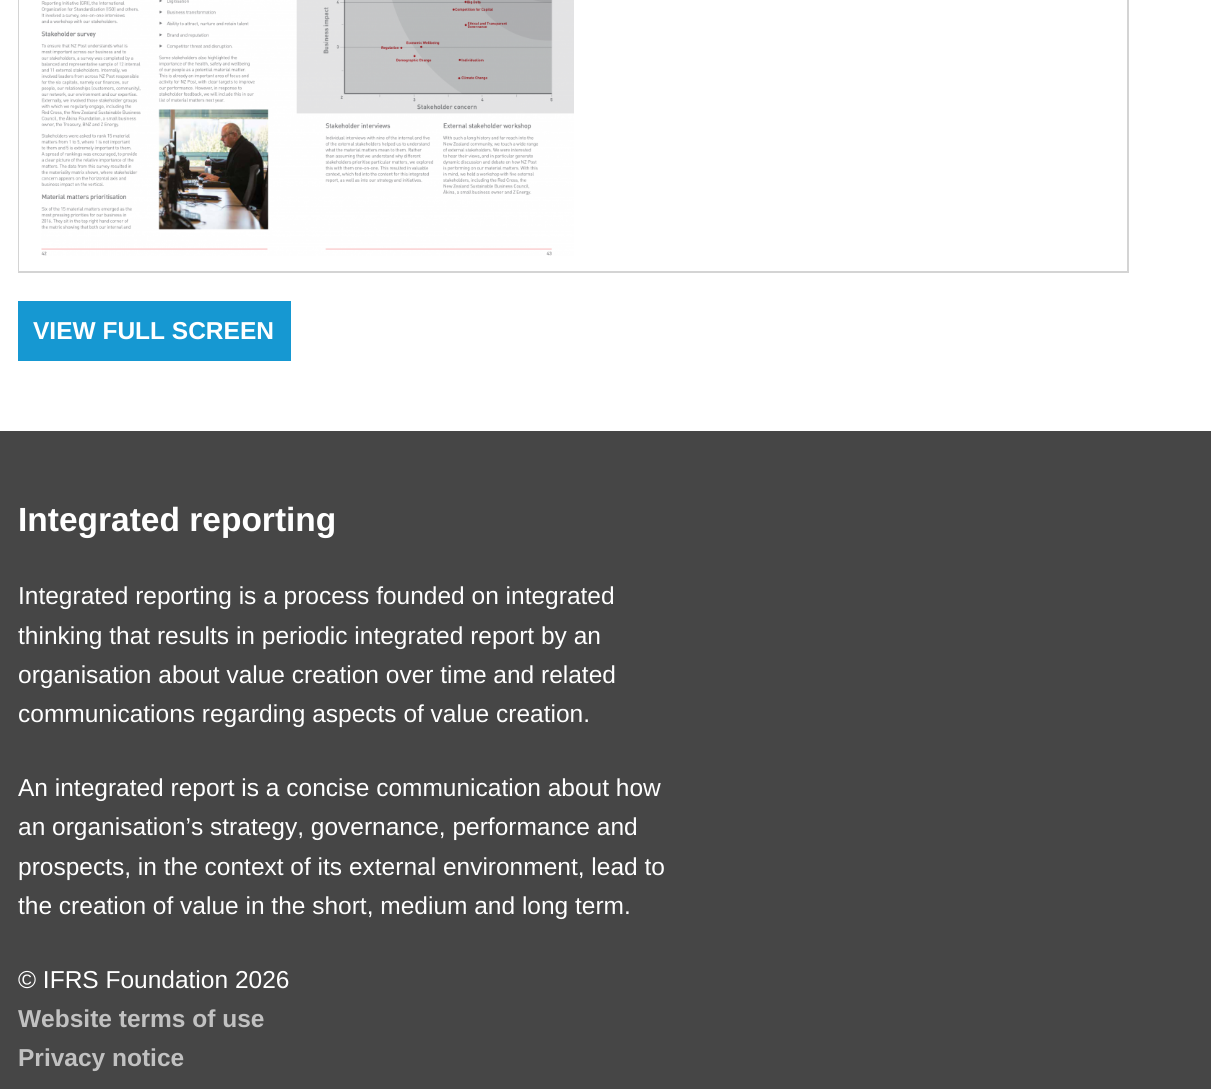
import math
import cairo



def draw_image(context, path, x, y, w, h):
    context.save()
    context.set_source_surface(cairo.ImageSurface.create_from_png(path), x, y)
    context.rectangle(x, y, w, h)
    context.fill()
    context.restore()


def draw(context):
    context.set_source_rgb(1, 1, 1)
    context.paint()
    context.rectangle(19, -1, 1109, 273)
    context.set_source_rgb(212 / 255, 212 / 255, 212 / 255)
    context.stroke()
    context.set_source_rgb(1, 1, 1)
    context.rectangle(19, 0, 1, 271)
    context.fill()
    draw_image(context, "images/1.png", 41, 0, 533, 256)
    context.set_source_rgb(22 / 255, 152 / 255, 210 / 255)
    context.rectangle(18, 301, 273, 60)
    context.fill()
    context.set_source_rgb(70 / 255, 70 / 255, 70 / 255)
    context.rectangle(0, 431, 1211, 658)
    context.fill()
    context.select_font_face("Liberation Sans", cairo.FontSlant.NORMAL, cairo.FontWeight.BOLD)
    context.set_font_size(24.5)
    context.set_source_rgb(1, 1, 1)
    context.move_to(33, 339)
    context.show_text("VIEW FULL SCREEN")
    context.set_font_size(33.5)
    context.move_to(18, 531)
    context.show_text("Integrated reporting")
    context.select_font_face("Liberation Sans")
    context.set_font_size(24.5)
    context.move_to(18, 604)
    context.show_text("Integrated reporting is a process founded on integrated")
    context.move_to(18, 644)
    context.show_text("thinking that results in periodic integrated report by an")
    context.move_to(18, 683)
    context.show_text("organisation about value creation over time and related")
    context.move_to(18, 722)
    context.show_text("communications regarding aspects of value creation.")
    context.move_to(18, 796)
    context.show_text("An integrated report is a concise communication about how")
    context.move_to(18, 835)
    context.show_text("an organisation’s strategy, governance, performance and")
    context.move_to(18, 875)
    context.show_text("prospects, in the context of its external environment, lead to")
    context.move_to(18, 914)
    context.show_text("the creation of value in the short, medium and long term.")
    context.move_to(18, 988)
    context.show_text("© IFRS Foundation 2026")
    context.select_font_face("Liberation Sans", cairo.FontSlant.NORMAL, cairo.FontWeight.BOLD)
    context.set_source_rgb(193 / 255, 193 / 255, 193 / 255)
    context.move_to(18, 1027)
    context.show_text("Website terms of use")
    context.move_to(18, 1066)
    context.show_text("Privacy notice")


surface = cairo.ImageSurface(cairo.Format.RGB24, 1211, 1089)
context = cairo.Context(surface)
options = cairo.FontOptions()
options.set_hint_metrics(cairo.HintMetrics.OFF)
options.set_hint_style(cairo.HintStyle.NONE)
context.set_font_options(options)
context.set_miter_limit(4)
draw(context)
surface.write_to_png("out.png")
